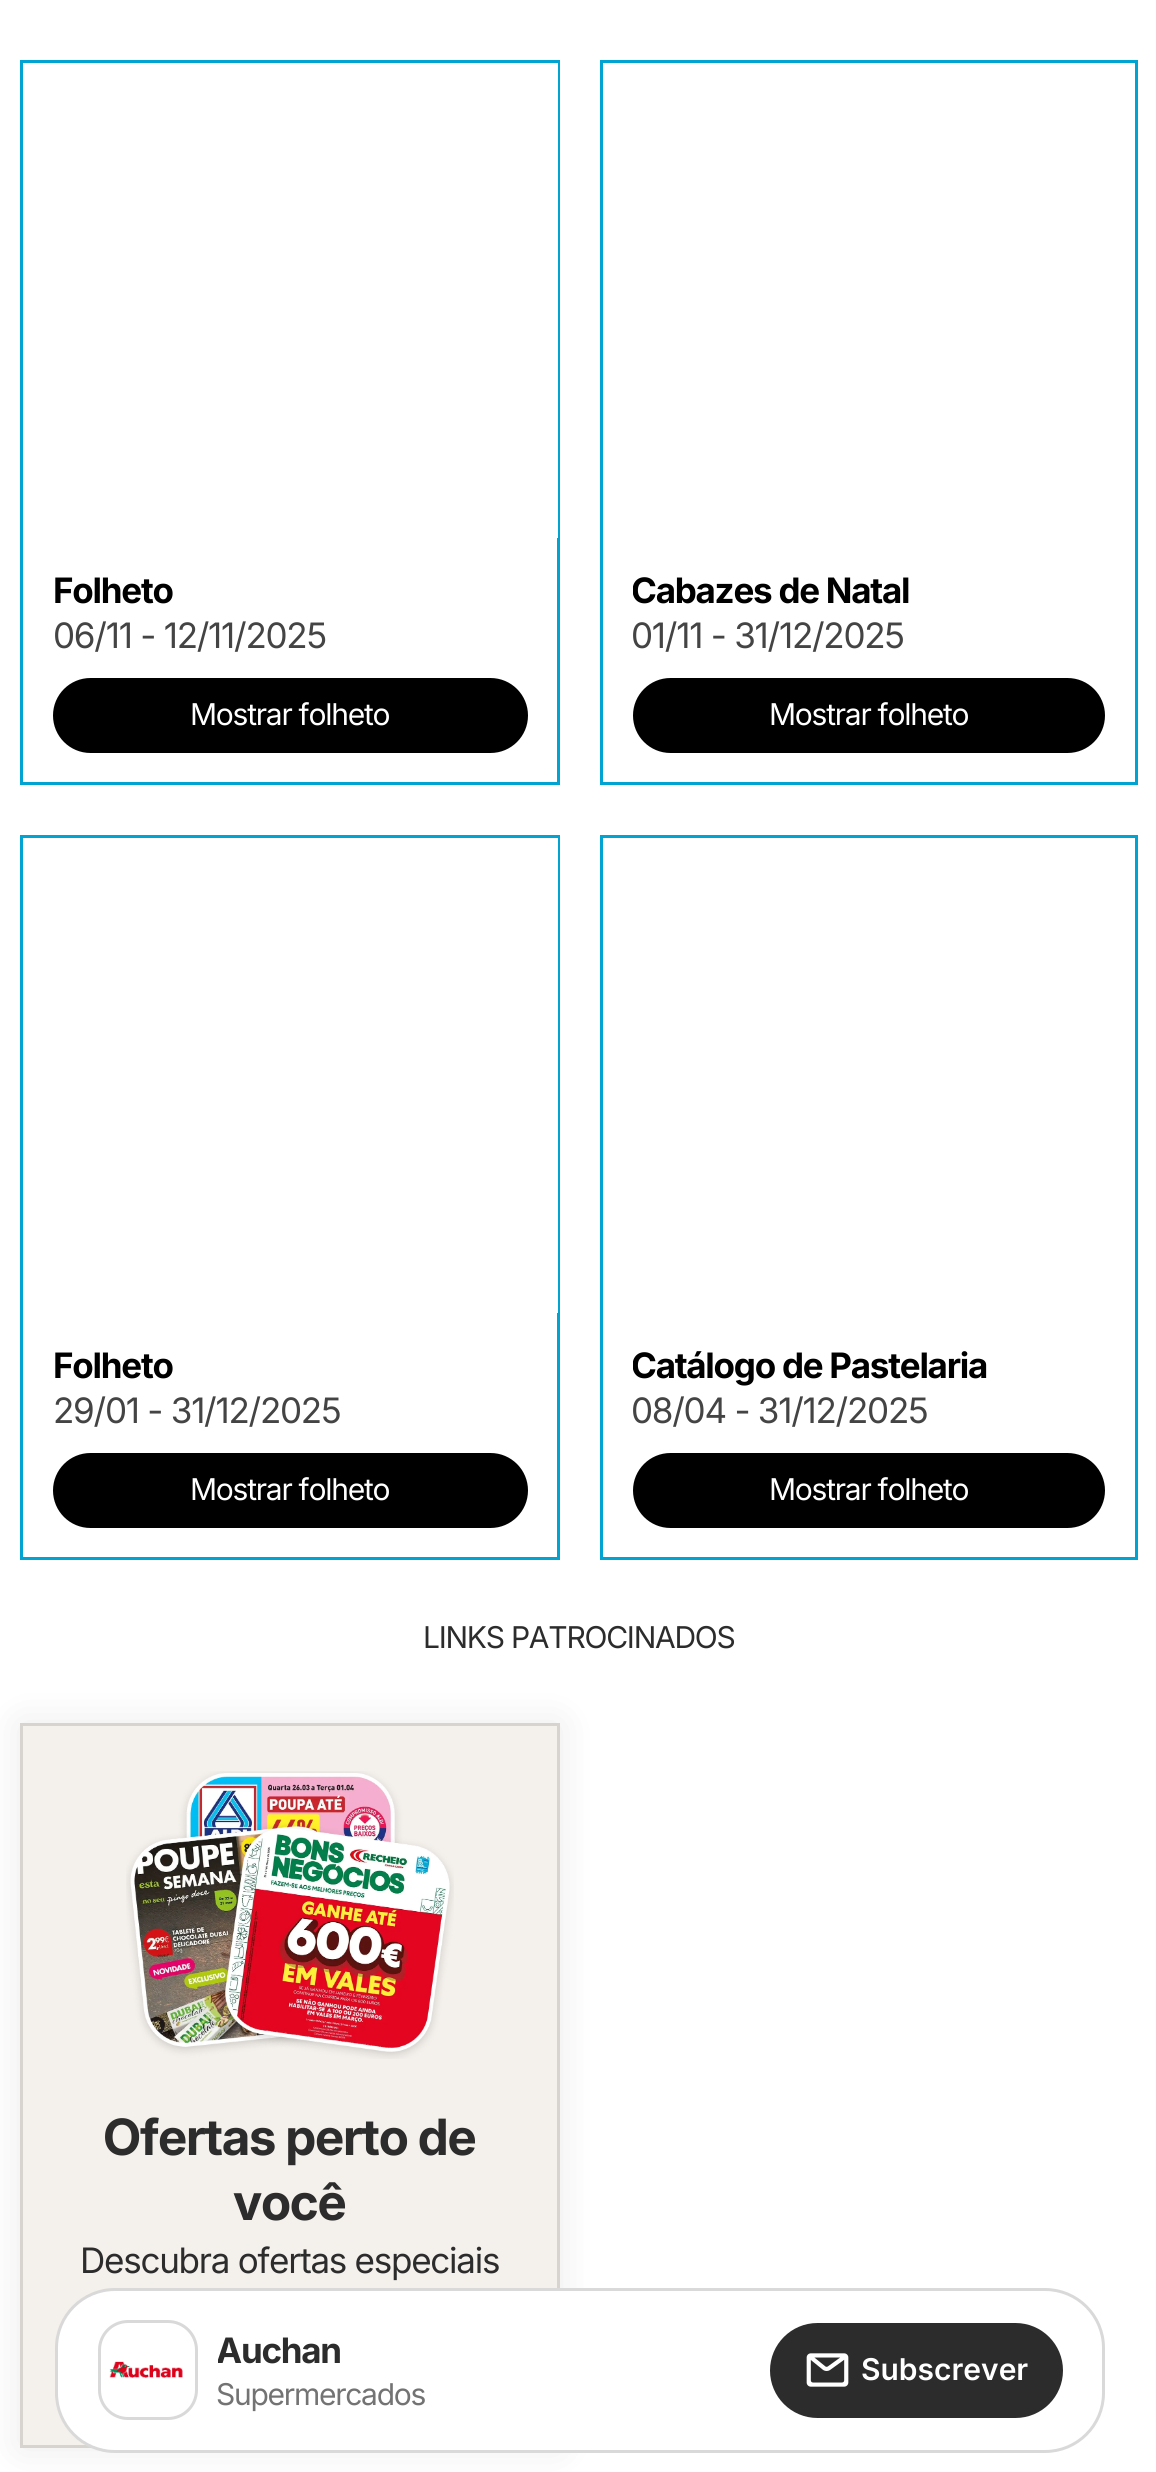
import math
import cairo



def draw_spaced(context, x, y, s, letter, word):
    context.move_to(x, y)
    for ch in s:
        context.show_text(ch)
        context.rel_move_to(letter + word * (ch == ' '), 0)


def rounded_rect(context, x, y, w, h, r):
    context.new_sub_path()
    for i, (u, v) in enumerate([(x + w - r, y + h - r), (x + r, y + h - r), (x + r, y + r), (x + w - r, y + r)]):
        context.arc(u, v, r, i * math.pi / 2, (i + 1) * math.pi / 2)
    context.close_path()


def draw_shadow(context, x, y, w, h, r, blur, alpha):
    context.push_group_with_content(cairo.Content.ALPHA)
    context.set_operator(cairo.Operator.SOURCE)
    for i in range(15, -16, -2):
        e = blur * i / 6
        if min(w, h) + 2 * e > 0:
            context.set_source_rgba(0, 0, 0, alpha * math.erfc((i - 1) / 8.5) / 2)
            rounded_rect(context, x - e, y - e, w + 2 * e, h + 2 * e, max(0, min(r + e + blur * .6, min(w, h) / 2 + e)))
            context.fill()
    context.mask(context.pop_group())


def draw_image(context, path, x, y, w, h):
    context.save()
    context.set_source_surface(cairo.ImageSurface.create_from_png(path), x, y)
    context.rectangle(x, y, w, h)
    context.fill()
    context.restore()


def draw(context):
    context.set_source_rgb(1, 1, 1)
    context.paint()
    context.rectangle(21.5, 61.5, 537, 722)
    context.set_source_rgb(0, 163 / 255, 209 / 255)
    context.set_line_width(3)
    context.stroke()
    context.set_source_rgb(1, 1, 1)
    context.rectangle(557, 63, 1, 475)
    context.fill()
    context.set_source_rgb(0, 0, 0)
    rounded_rect(context, 54.5, 679.5, 472, 72, 36)
    context.fill_preserve()
    context.stroke()
    context.rectangle(601.5, 61.5, 535, 722)
    context.set_source_rgb(0, 163 / 255, 209 / 255)
    context.stroke()
    context.set_source_rgb(0, 0, 0)
    rounded_rect(context, 634.5, 679.5, 469, 72, 36)
    context.fill_preserve()
    context.stroke()
    context.rectangle(21.5, 836.5, 537, 722)
    context.set_source_rgb(0, 163 / 255, 209 / 255)
    context.stroke()
    context.set_source_rgb(1, 1, 1)
    context.rectangle(557, 838, 1, 475)
    context.fill()
    context.set_source_rgb(0, 0, 0)
    rounded_rect(context, 54.5, 1454.5, 472, 72, 36)
    context.fill_preserve()
    context.stroke()
    context.rectangle(601.5, 836.5, 535, 722)
    context.set_source_rgb(0, 163 / 255, 209 / 255)
    context.stroke()
    context.set_source_rgb(0, 0, 0)
    rounded_rect(context, 634.5, 1454.5, 469, 72, 36)
    context.fill_preserve()
    context.stroke()
    context.set_source_rgb(0, 0, 0)
    draw_shadow(context, 20, 1723, 540, 725, 0, 20, 0.08)
    context.set_source_rgb(244 / 255, 240 / 255, 235 / 255)
    context.rectangle(21.5, 1724.5, 537, 722)
    context.fill_preserve()
    context.set_source_rgb(215 / 255, 211 / 255, 207 / 255)
    context.stroke()
    draw_image(context, "images/1.png", 126, 1771, 328, 288)
    context.set_source_rgb(1, 1, 1)
    rounded_rect(context, 55, 2288, 1050, 165, 60)
    context.fill()
    rounded_rect(context, 56.5, 2289.5, 1047, 162, 58.5)
    context.set_source_rgba(0, 0, 0, 0.15)
    context.stroke()
    rounded_rect(context, 99.5, 2321.5, 97, 97, 28.5)
    context.set_source_rgb(217 / 255, 217 / 255, 217 / 255)
    context.stroke()
    draw_image(context, "images/2.png", 109, 2361, 74, 18)
    context.set_source_rgb(44 / 255, 44 / 255, 44 / 255)
    rounded_rect(context, 770, 2323, 293, 95, 47.5)
    context.fill()
    draw_image(context, "images/3.png", 806, 2353, 43, 34)
    context.select_font_face("Inter", cairo.FontSlant.NORMAL, cairo.FontWeight.BOLD)
    context.set_font_size(35)
    context.set_source_rgb(0, 0, 0)
    draw_spaced(context, 53, 603, "Folheto", -1.25, 0)
    context.select_font_face("Inter")
    context.set_source_rgb(68 / 255, 68 / 255, 68 / 255)
    draw_spaced(context, 53, 648, "06/11 - 12/11/2025", -1.25, 0)
    context.set_font_size(30)
    context.set_source_rgb(1, 1, 1)
    draw_spaced(context, 190, 725, "Mostrar folheto", -1.25, 0)
    context.save()
    context.rectangle(633, 538, 472, 75)
    context.clip()
    context.select_font_face("Inter", cairo.FontSlant.NORMAL, cairo.FontWeight.BOLD)
    context.set_font_size(35)
    context.set_source_rgb(0, 0, 0)
    draw_spaced(context, 631, 603, "Cabazes de Natal", -1.25, 0)
    context.restore()
    context.set_font_size(35)
    context.set_source_rgb(68 / 255, 68 / 255, 68 / 255)
    draw_spaced(context, 631, 648, "01/11 - 31/12/2025", -1.25, 0)
    context.set_font_size(30)
    context.set_source_rgb(1, 1, 1)
    draw_spaced(context, 769, 725, "Mostrar folheto", -1.25, 0)
    context.select_font_face("Inter", cairo.FontSlant.NORMAL, cairo.FontWeight.BOLD)
    context.set_font_size(35)
    context.set_source_rgb(0, 0, 0)
    draw_spaced(context, 53, 1378, "Folheto", -1.25, 0)
    context.select_font_face("Inter")
    context.set_source_rgb(68 / 255, 68 / 255, 68 / 255)
    draw_spaced(context, 53, 1423, "29/01 - 31/12/2025", -1.25, 0)
    context.set_font_size(30)
    context.set_source_rgb(1, 1, 1)
    draw_spaced(context, 190, 1500, "Mostrar folheto", -1.25, 0)
    context.save()
    context.rectangle(633, 1313, 472, 75)
    context.clip()
    context.select_font_face("Inter", cairo.FontSlant.NORMAL, cairo.FontWeight.BOLD)
    context.set_font_size(35)
    context.set_source_rgb(0, 0, 0)
    draw_spaced(context, 631, 1378, "Catálogo de Pastelaria", -1.25, 0)
    context.restore()
    context.set_font_size(35)
    context.set_source_rgb(68 / 255, 68 / 255, 68 / 255)
    draw_spaced(context, 631, 1423, "08/04 - 31/12/2025", -1.25, 0)
    context.set_font_size(30)
    context.set_source_rgb(1, 1, 1)
    draw_spaced(context, 769, 1500, "Mostrar folheto", -1.25, 0)
    context.set_source_rgb(44 / 255, 44 / 255, 44 / 255)
    draw_spaced(context, 423, 1648, "LINKS PATROCINADOS", -1.25, 0)
    context.select_font_face("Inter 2", cairo.FontSlant.NORMAL, cairo.FontWeight.BOLD)
    context.set_font_size(50)
    draw_spaced(context, 103, 2155, "Ofertas perto de", -1.25, 0)
    draw_spaced(context, 233, 2220, "você", -1.25, 0)
    context.select_font_face("Inter")
    context.set_font_size(35)
    draw_spaced(context, 80, 2273, "Descubra ofertas especiais", -1.25, 0)
    context.save()
    context.rectangle(218, 2325, 552, 50)
    context.clip()
    context.select_font_face("Inter", cairo.FontSlant.NORMAL, cairo.FontWeight.BOLD)
    draw_spaced(context, 216, 2363, "Auchan", -1.25, 0)
    context.restore()
    context.set_font_size(30)
    context.set_source_rgb(115 / 255, 115 / 255, 115 / 255)
    draw_spaced(context, 216, 2405, "Supermercados", -1.25, 0)
    context.select_font_face("Inter SemiBold")
    context.set_source_rgb(1, 1, 1)
    context.move_to(861, 2380)
    context.show_text("Subscrever")


surface = cairo.ImageSurface(cairo.Format.RGB24, 1156, 2472)
context = cairo.Context(surface)
options = cairo.FontOptions()
options.set_hint_metrics(cairo.HintMetrics.OFF)
options.set_hint_style(cairo.HintStyle.NONE)
context.set_font_options(options)
context.set_miter_limit(4)
draw(context)
surface.write_to_png("out.png")
